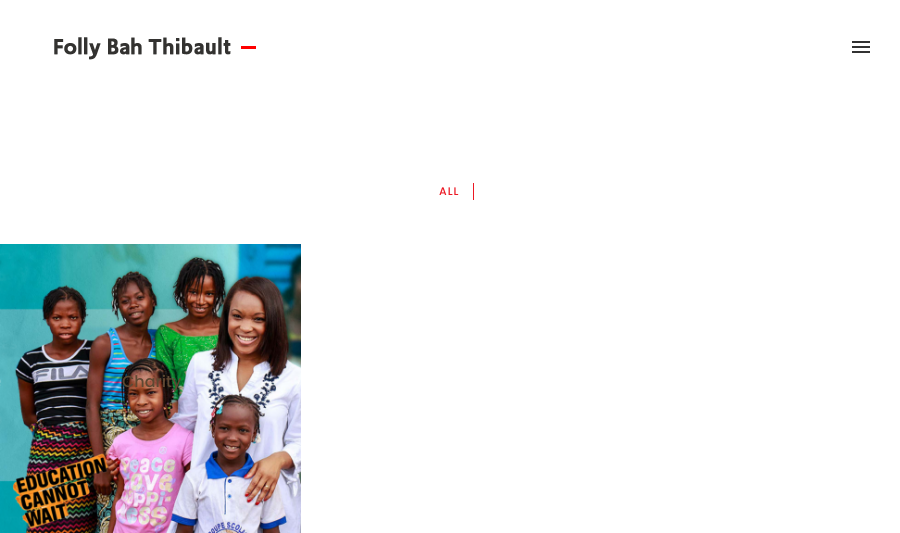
import math
import cairo



def draw_spaced(context, x, y, s, letter, word):
    context.move_to(x, y)
    for ch in s:
        context.show_text(ch)
        context.rel_move_to(letter + word * (ch == ' '), 0)


def draw_image(context, path, x, y, w, h):
    context.save()
    context.set_source_surface(cairo.ImageSurface.create_from_png(path), x, y)
    context.rectangle(x, y, w, h)
    context.fill()
    context.restore()


def draw(context):
    context.set_source_rgb(1, 1, 1)
    context.paint()
    draw_image(context, "images/1.png", 54, 37, 202, 23)
    context.set_source_rgb(50 / 255, 50 / 255, 50 / 255)
    context.rectangle(852, 41, 18, 2)
    context.fill()
    context.rectangle(852, 46, 18, 2)
    context.fill()
    context.rectangle(852, 51, 18, 2)
    context.fill()
    context.set_source_rgb(236 / 255, 24 / 255, 35 / 255)
    context.rectangle(473, 183, 1, 17)
    context.fill()
    draw_image(context, "images/2.png", 0, 244, 301, 289)
    context.select_font_face("Poppins Medium")
    context.set_font_size(11)
    draw_spaced(context, 439, 195, "ALL", 1, 0)
    context.set_font_size(16)
    context.set_source_rgb(94 / 255, 72 / 255, 50 / 255)
    context.move_to(122, 387)
    context.show_text("Charity")


surface = cairo.ImageSurface(cairo.Format.RGB24, 900, 533)
context = cairo.Context(surface)
options = cairo.FontOptions()
options.set_hint_metrics(cairo.HintMetrics.OFF)
options.set_hint_style(cairo.HintStyle.NONE)
context.set_font_options(options)
context.set_miter_limit(4)
draw(context)
surface.write_to_png("out.png")
